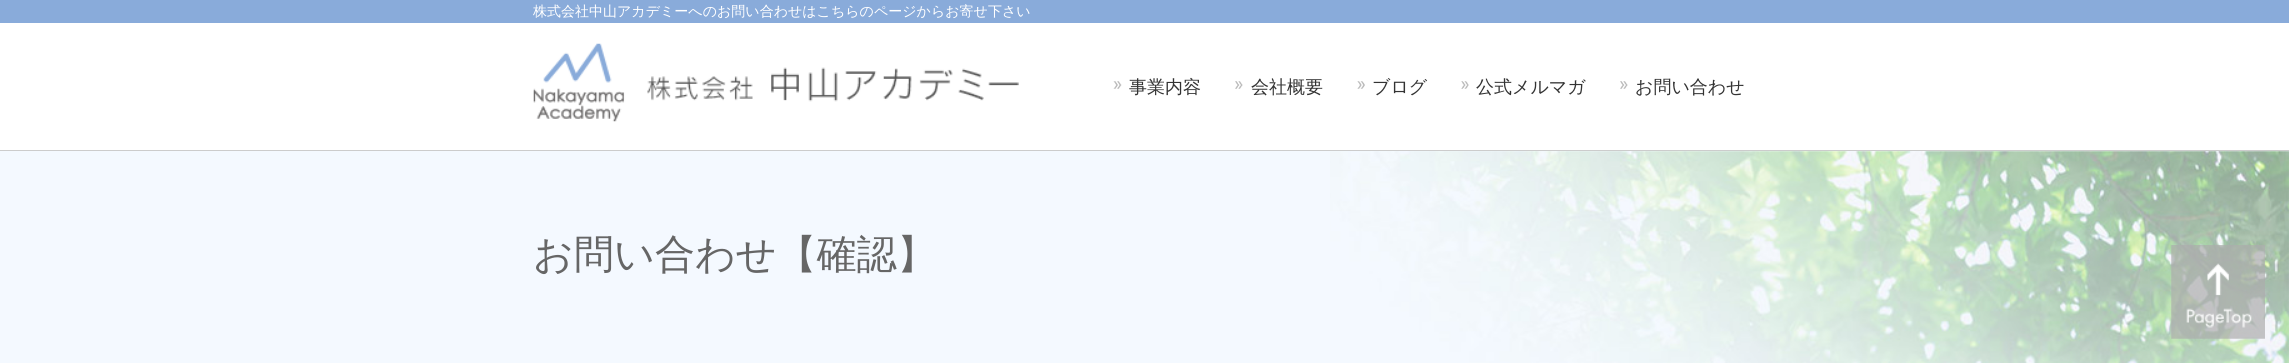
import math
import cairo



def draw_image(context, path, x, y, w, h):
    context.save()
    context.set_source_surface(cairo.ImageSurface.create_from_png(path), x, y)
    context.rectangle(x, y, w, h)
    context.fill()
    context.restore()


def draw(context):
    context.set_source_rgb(1, 1, 1)
    context.paint()
    context.set_source_rgb(137 / 255, 171 / 255, 218 / 255)
    context.rectangle(0, 0, 2289, 23)
    context.fill()
    context.set_source_rgb(204 / 255, 204 / 255, 204 / 255)
    context.rectangle(0, 150, 2289, 1)
    context.fill()
    draw_image(context, "images/1.png", 533, 43, 486, 79)
    draw_image(context, "images/2.png", 1113, 81, 9, 8)
    draw_image(context, "images/3.png", 1235, 81, 8, 8)
    draw_image(context, "images/4.png", 1357, 81, 8, 8)
    draw_image(context, "images/5.png", 1461, 81, 8, 8)
    draw_image(context, "images/3.png", 1620, 81, 8, 8)
    context.set_source_rgb(244 / 255, 249 / 255, 1)
    context.rectangle(0, 151, 2289, 212)
    context.fill()
    draw_image(context, "images/6.png", 1330, 151, 959, 212)
    draw_image(context, "images/7.png", 2171, 245, 94, 94)
    context.select_font_face("WenQuanYi Zen Hei Medium")
    context.set_font_size(14)
    context.set_source_rgb(1, 1, 1)
    context.move_to(533, 16)
    context.show_text("株式会社中山アカデミーへのお問い合わせはこちらのページからお寄せ下さい")
    context.set_font_size(18)
    context.set_source_rgb(51 / 255, 51 / 255, 51 / 255)
    context.move_to(1129, 93)
    context.show_text("事業内容")
    context.move_to(1251, 93)
    context.show_text("会社概要")
    context.move_to(1372, 93)
    context.show_text("ブログ")
    context.move_to(1476, 93)
    context.show_text("公式メルマガ")
    context.move_to(1635, 93)
    context.show_text("お問い合わせ")
    context.set_font_size(40)
    context.set_source_rgb(102 / 255, 102 / 255, 102 / 255)
    context.move_to(533, 268)
    context.show_text("お問い合わせ【確認】")


surface = cairo.ImageSurface(cairo.Format.RGB24, 2289, 363)
context = cairo.Context(surface)
options = cairo.FontOptions()
options.set_hint_metrics(cairo.HintMetrics.OFF)
options.set_hint_style(cairo.HintStyle.NONE)
context.set_font_options(options)
context.set_miter_limit(4)
draw(context)
surface.write_to_png("out.png")
